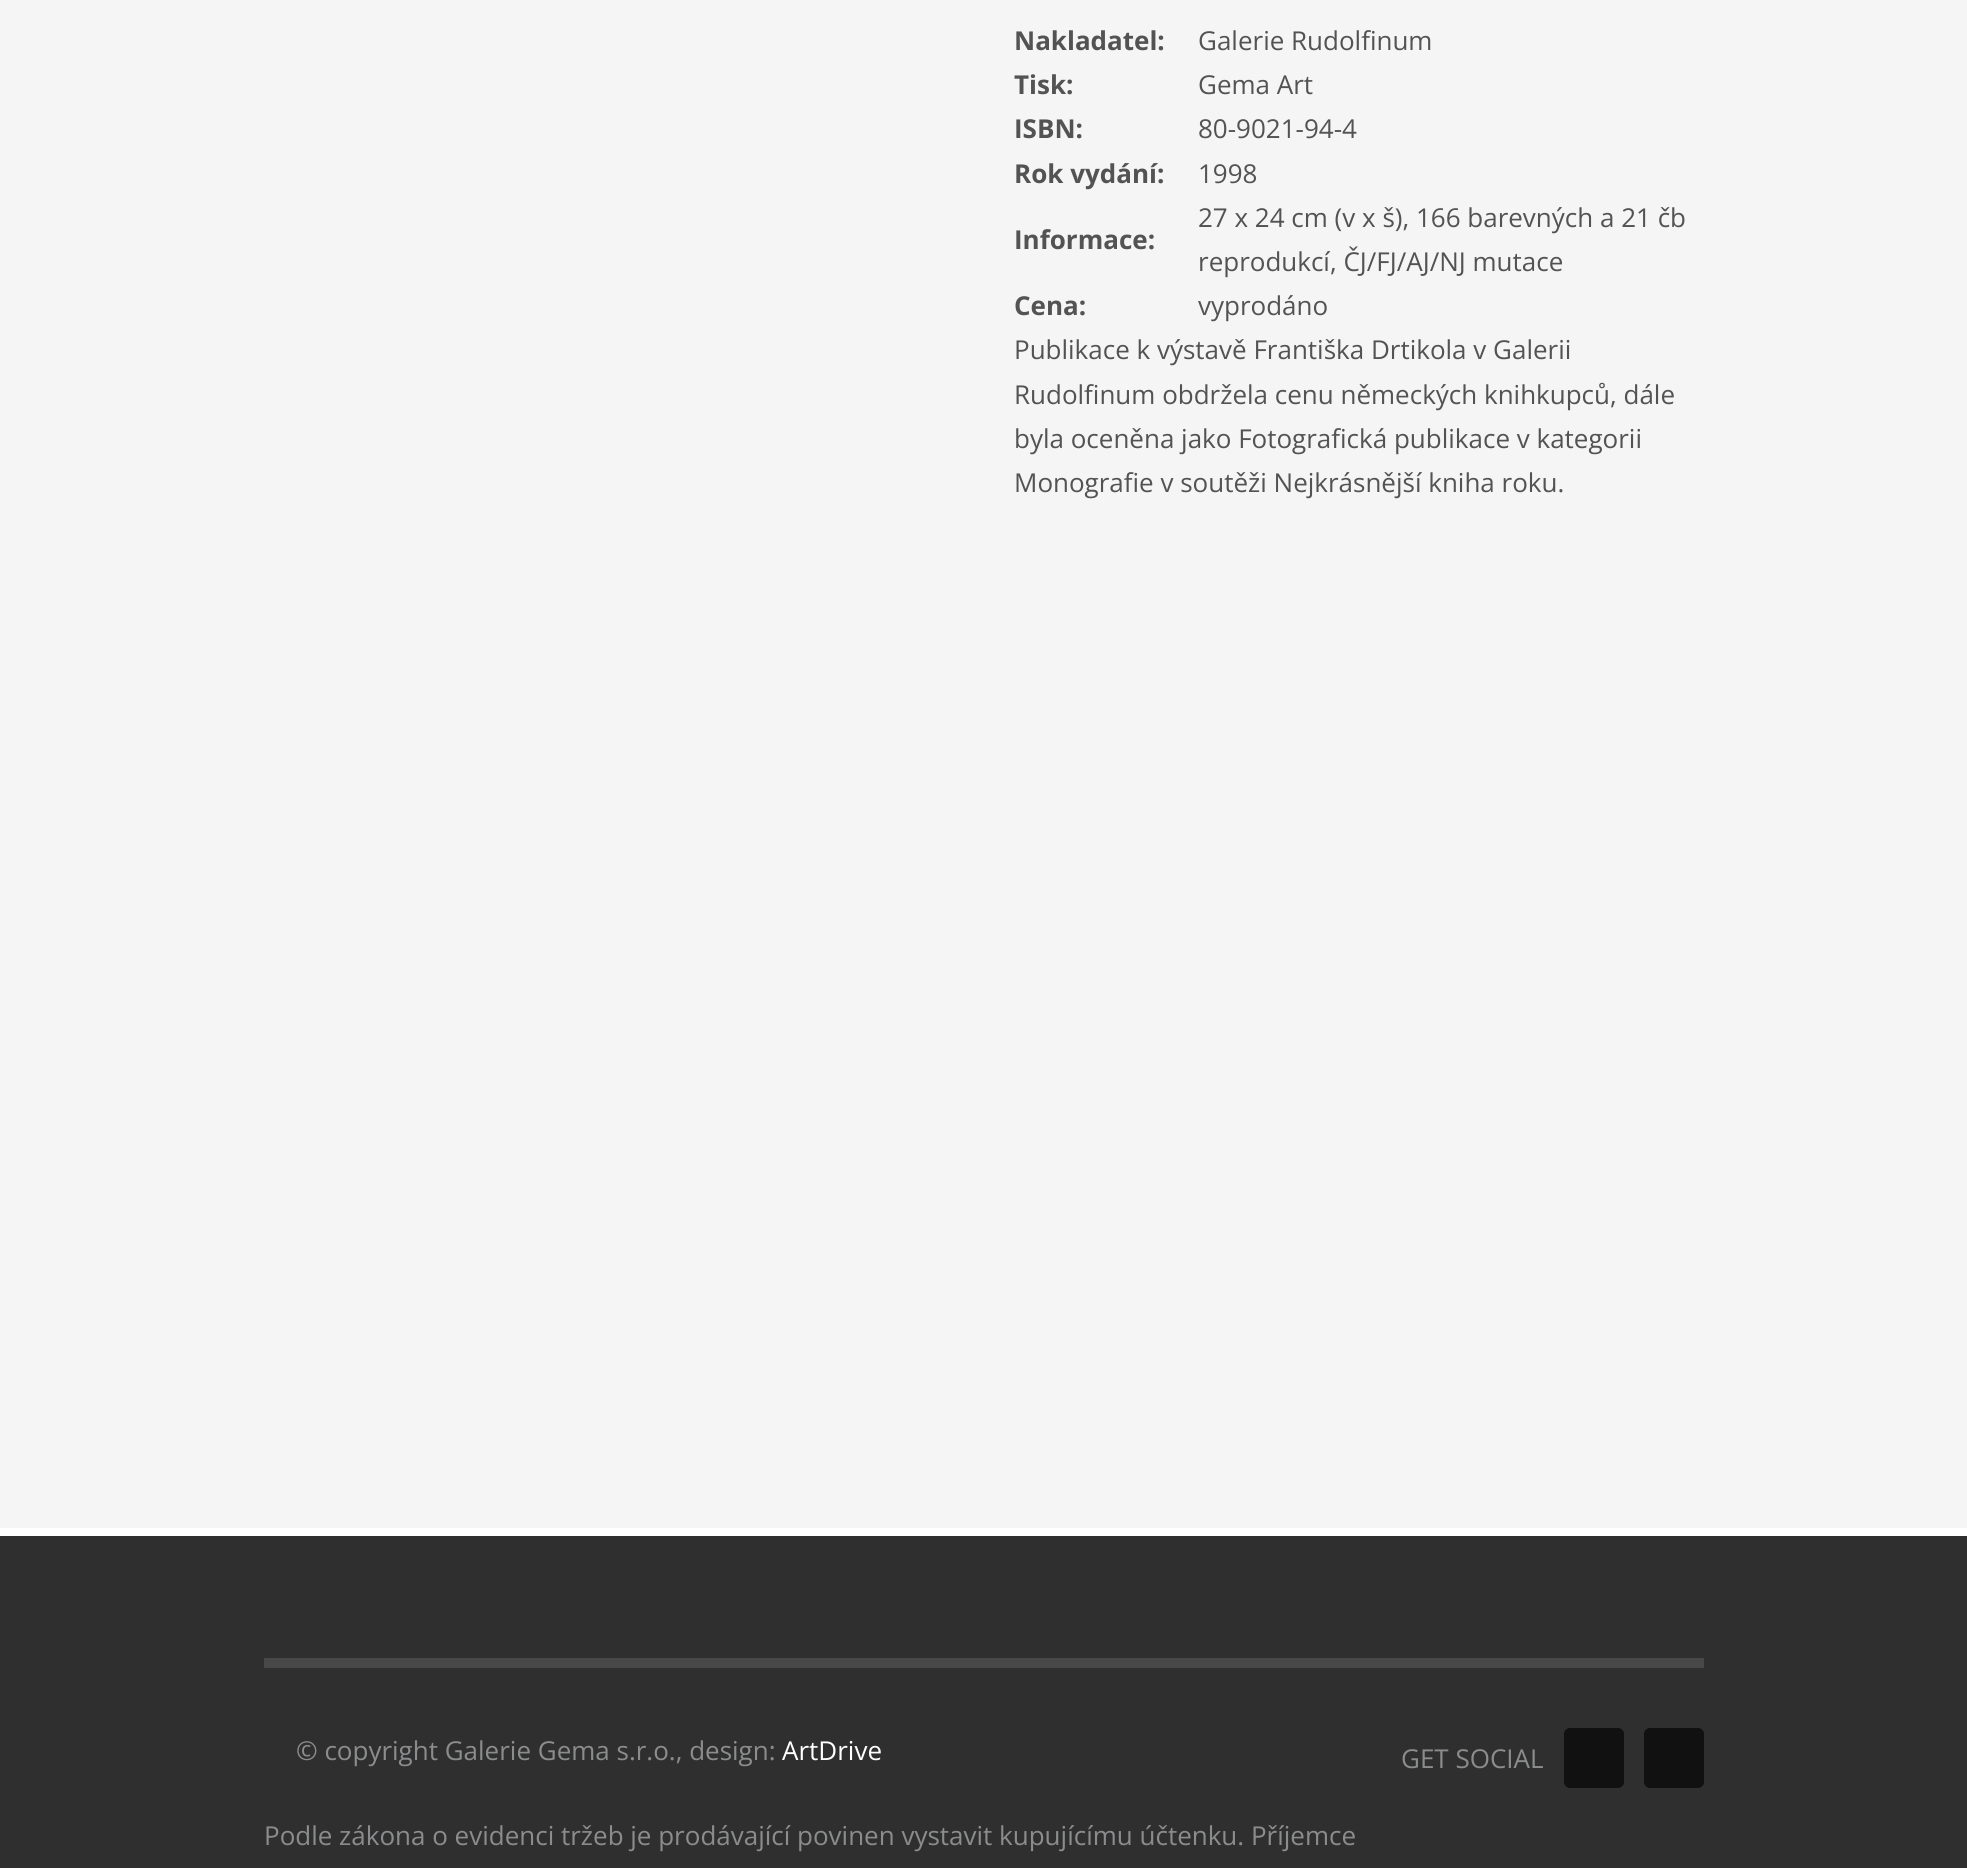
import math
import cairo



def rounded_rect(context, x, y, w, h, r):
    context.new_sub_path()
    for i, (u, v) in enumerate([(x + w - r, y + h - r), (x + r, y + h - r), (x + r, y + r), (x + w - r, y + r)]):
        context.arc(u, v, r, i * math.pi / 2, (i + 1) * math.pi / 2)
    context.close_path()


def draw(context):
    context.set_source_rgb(245 / 255, 245 / 255, 245 / 255)
    context.paint()
    context.set_source_rgb(47 / 255, 47 / 255, 47 / 255)
    context.rectangle(0, 1536, 1967, 332)
    context.fill()
    context.set_source_rgb(1, 1, 1)
    context.rectangle(0, 1528, 1967, 8)
    context.fill()
    context.set_source_rgb(72 / 255, 72 / 255, 72 / 255)
    context.rectangle(264, 1658, 1440, 10)
    context.fill()
    context.set_source_rgb(17 / 255, 17 / 255, 17 / 255)
    rounded_rect(context, 1564, 1728, 60, 60, 6)
    context.fill()
    rounded_rect(context, 1644, 1728, 60, 60, 6)
    context.fill()
    context.select_font_face("Open Sans", cairo.FontSlant.NORMAL, cairo.FontWeight.BOLD)
    context.set_font_size(26)
    context.set_source_rgb(83 / 255, 83 / 255, 83 / 255)
    context.move_to(1014, 50)
    context.show_text("Nakladatel:")
    context.select_font_face("Open Sans")
    context.move_to(1198, 50)
    context.show_text("Galerie Rudolfinum")
    context.select_font_face("Open Sans", cairo.FontSlant.NORMAL, cairo.FontWeight.BOLD)
    context.move_to(1014, 94)
    context.show_text("Tisk:")
    context.select_font_face("Open Sans")
    context.move_to(1198, 94)
    context.show_text("Gema Art")
    context.select_font_face("Open Sans", cairo.FontSlant.NORMAL, cairo.FontWeight.BOLD)
    context.move_to(1014, 138)
    context.show_text("ISBN:")
    context.select_font_face("Open Sans")
    context.move_to(1198, 138)
    context.show_text("80-9021-94-4")
    context.select_font_face("Open Sans", cairo.FontSlant.NORMAL, cairo.FontWeight.BOLD)
    context.move_to(1014, 183)
    context.show_text("Rok vydání:")
    context.select_font_face("Open Sans")
    context.move_to(1198, 183)
    context.show_text("1998")
    context.select_font_face("Open Sans", cairo.FontSlant.NORMAL, cairo.FontWeight.BOLD)
    context.move_to(1014, 249)
    context.show_text("Informace:")
    context.select_font_face("Open Sans")
    context.move_to(1198, 227)
    context.show_text("27 x 24 cm (v x š), 166 barevných a 21 čb")
    context.move_to(1198, 271)
    context.show_text("reprodukcí, ČJ/FJ/AJ/NJ mutace")
    context.select_font_face("Open Sans", cairo.FontSlant.NORMAL, cairo.FontWeight.BOLD)
    context.move_to(1014, 315)
    context.show_text("Cena:")
    context.select_font_face("Open Sans")
    context.move_to(1198, 315)
    context.show_text("vyprodáno")
    context.move_to(1014, 359)
    context.show_text("Publikace k výstavě Františka Drtikola v Galerii")
    context.move_to(1014, 404)
    context.show_text("Rudolfinum obdržela cenu německých knihkupců, dále")
    context.move_to(1014, 448)
    context.show_text("byla oceněna jako Fotografická publikace v kategorii")
    context.move_to(1014, 492)
    context.show_text("Monografie v soutěži Nejkrásnější kniha roku.")
    context.set_source_rgb(139 / 255, 140 / 255, 141 / 255)
    context.move_to(296, 1760)
    context.show_text("© copyright Galerie Gema s.r.o., design:")
    context.set_source_rgb(1, 1, 1)
    context.move_to(782, 1760)
    context.show_text("ArtDrive")
    context.set_source_rgb(139 / 255, 140 / 255, 141 / 255)
    context.move_to(264, 1845)
    context.show_text("Podle zákona o evidenci tržeb je prodávající povinen vystavit kupujícímu účtenku. Příjemce")
    context.move_to(1401, 1768)
    context.show_text("GET SOCIAL")


surface = cairo.ImageSurface(cairo.Format.RGB24, 1967, 1868)
context = cairo.Context(surface)
options = cairo.FontOptions()
options.set_hint_metrics(cairo.HintMetrics.OFF)
options.set_hint_style(cairo.HintStyle.NONE)
context.set_font_options(options)
context.set_miter_limit(4)
draw(context)
surface.write_to_png("out.png")
